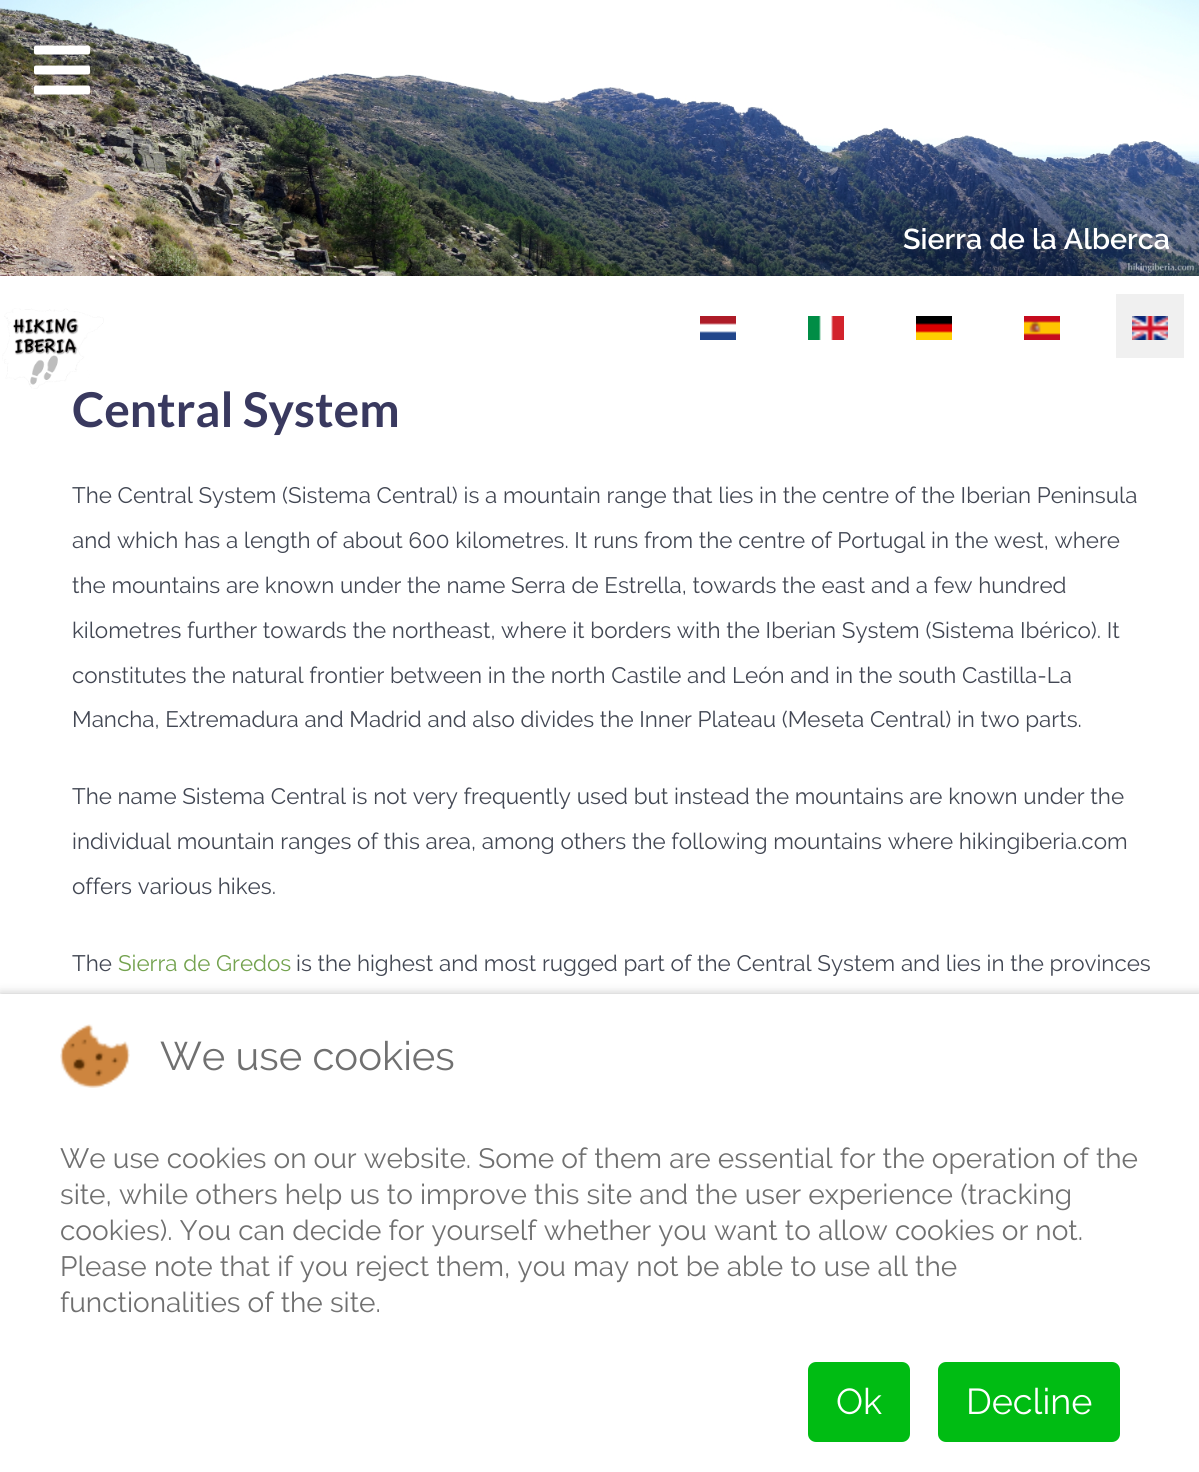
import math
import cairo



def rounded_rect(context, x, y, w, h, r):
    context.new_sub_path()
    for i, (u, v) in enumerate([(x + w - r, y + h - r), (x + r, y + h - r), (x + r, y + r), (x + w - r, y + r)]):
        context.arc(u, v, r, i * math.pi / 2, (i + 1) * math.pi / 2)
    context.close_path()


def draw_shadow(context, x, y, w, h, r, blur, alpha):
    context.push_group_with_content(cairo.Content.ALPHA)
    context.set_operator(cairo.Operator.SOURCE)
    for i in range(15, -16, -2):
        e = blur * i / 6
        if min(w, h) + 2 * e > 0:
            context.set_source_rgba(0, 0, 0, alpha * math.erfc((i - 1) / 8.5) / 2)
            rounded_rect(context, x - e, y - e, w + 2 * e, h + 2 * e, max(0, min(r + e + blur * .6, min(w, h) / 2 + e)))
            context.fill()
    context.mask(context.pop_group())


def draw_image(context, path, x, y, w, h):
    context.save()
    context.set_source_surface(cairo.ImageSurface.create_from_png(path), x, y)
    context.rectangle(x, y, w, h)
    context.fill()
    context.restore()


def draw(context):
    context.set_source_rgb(1, 1, 1)
    context.paint()
    draw_image(context, "images/2.png", 0, 0, 1199, 276)
    draw_image(context, "images/1.png", 34, 45, 56, 50)
    draw_image(context, "images/3.png", 2, 308, 102, 81)
    draw_image(context, "images/4.png", 700, 316, 36, 24)
    draw_image(context, "images/5.png", 808, 316, 36, 24)
    draw_image(context, "images/6.png", 916, 316, 36, 24)
    draw_image(context, "images/7.png", 1024, 316, 36, 24)
    context.set_source_rgb(240 / 255, 240 / 255, 240 / 255)
    context.rectangle(1116, 294, 68, 64)
    context.fill()
    draw_image(context, "images/8.png", 1132, 316, 36, 24)
    context.set_source_rgb(0, 0, 0)
    draw_shadow(context, 0, 994, 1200, 478, 0, 5, 0.25)
    context.set_source_rgb(1, 1, 1)
    context.rectangle(0, 994, 1199, 478)
    context.fill()
    draw_image(context, "images/9.png", 60, 1024, 70, 64)
    context.set_source_rgb(0, 188 / 255, 19 / 255)
    rounded_rect(context, 808, 1362, 102, 80, 8)
    context.fill()
    rounded_rect(context, 938, 1362, 182, 80, 8)
    context.fill()
    context.select_font_face("Raleway SemiBold")
    context.set_font_size(28.75)
    context.set_source_rgb(1, 1, 1)
    context.move_to(903, 249)
    context.show_text("Sierra de la Alberca")
    context.select_font_face("Lato", cairo.FontSlant.NORMAL, cairo.FontWeight.BOLD)
    context.set_font_size(48)
    context.set_source_rgb(57 / 255, 57 / 255, 95 / 255)
    context.move_to(72, 427)
    context.show_text("Central System")
    context.select_font_face("Raleway")
    context.set_font_size(22.4)
    context.set_source_rgb(66 / 255, 71 / 255, 83 / 255)
    context.move_to(72, 503)
    context.show_text("The Central System (Sistema Central) is a mountain range that lies in the centre of the Iberian Peninsula")
    context.move_to(72, 548)
    context.show_text("and which has a length of about 600 kilometres. It runs from the centre of Portugal in the west, where")
    context.move_to(72, 593)
    context.show_text("the mountains are known under the name Serra de Estrella, towards the east and a few hundred")
    context.move_to(72, 638)
    context.show_text("kilometres further towards the northeast, where it borders with the Iberian System (Sistema Ibérico). It")
    context.move_to(72, 683)
    context.show_text("constitutes the natural frontier between in the north Castile and León and in the south Castilla-La")
    context.move_to(72, 727)
    context.show_text("Mancha, Extremadura and Madrid and also divides the Inner Plateau (Meseta Central) in two parts.")
    context.move_to(72, 804)
    context.show_text("The name Sistema Central is not very frequently used but instead the mountains are known under the")
    context.move_to(72, 849)
    context.show_text("individual mountain ranges of this area, among others the following mountains where hikingiberia.com")
    context.move_to(72, 894)
    context.show_text("offers various hikes.")
    context.move_to(72, 971)
    context.show_text("The")
    context.set_source_rgb(115 / 255, 162 / 255, 78 / 255)
    context.move_to(118, 971)
    context.show_text("Sierra de Gredos")
    context.set_source_rgb(66 / 255, 71 / 255, 83 / 255)
    context.move_to(296, 971)
    context.show_text("is the highest and most rugged part of the Central System and lies in the provinces")
    context.set_font_size(40)
    context.set_source_rgb(112 / 255, 112 / 255, 112 / 255)
    context.move_to(160, 1070)
    context.show_text("We use cookies")
    context.set_font_size(28)
    context.move_to(60, 1168)
    context.show_text("We use cookies on our website. Some of them are essential for the operation of the")
    context.move_to(60, 1204)
    context.show_text("site, while others help us to improve this site and the user experience (tracking")
    context.move_to(60, 1240)
    context.show_text("cookies). You can decide for yourself whether you want to allow cookies or not.")
    context.move_to(60, 1276)
    context.show_text("Please note that if you reject them, you may not be able to use all the")
    context.move_to(60, 1312)
    context.show_text("functionalities of the site.")
    context.set_font_size(36)
    context.set_source_rgb(1, 1, 1)
    context.move_to(836, 1414)
    context.show_text("Ok")
    context.move_to(966, 1414)
    context.show_text("Decline")


surface = cairo.ImageSurface(cairo.Format.RGB24, 1199, 1472)
context = cairo.Context(surface)
options = cairo.FontOptions()
options.set_hint_metrics(cairo.HintMetrics.OFF)
options.set_hint_style(cairo.HintStyle.NONE)
context.set_font_options(options)
context.set_miter_limit(4)
draw(context)
surface.write_to_png("out.png")
